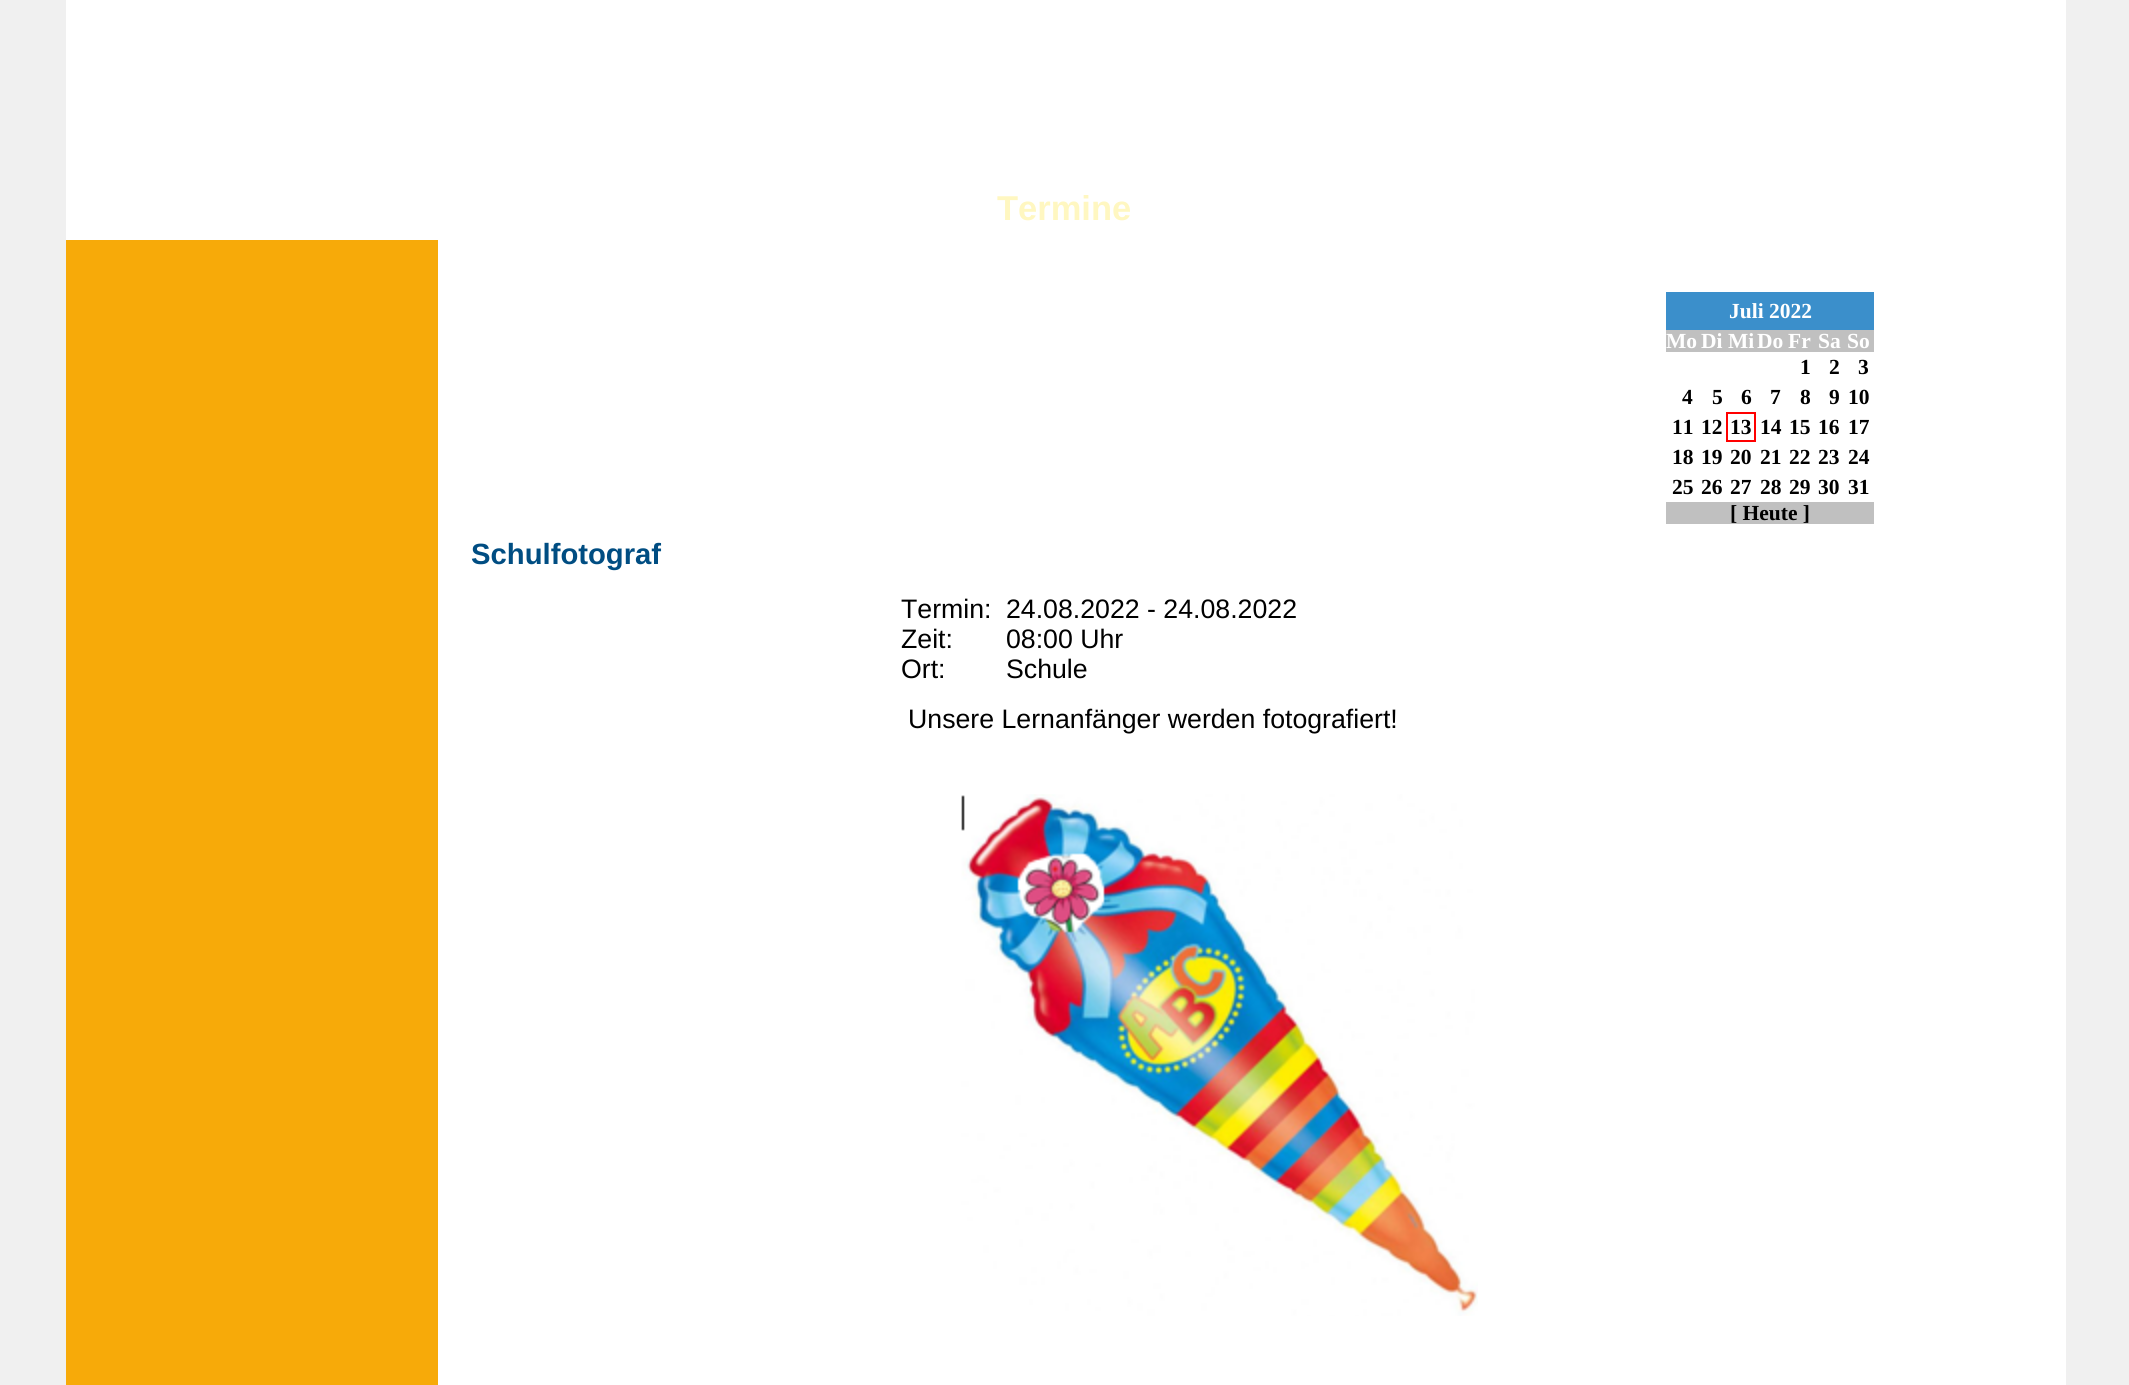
import math
import cairo



def draw_image(context, path, x, y, w, h):
    context.save()
    context.set_source_surface(cairo.ImageSurface.create_from_png(path), x, y)
    context.rectangle(x, y, w, h)
    context.fill()
    context.restore()


def draw(context):
    context.set_source_rgb(240 / 255, 240 / 255, 240 / 255)
    context.paint()
    context.set_source_rgb(1, 1, 1)
    context.rectangle(66, 0, 2000, 240)
    context.fill()
    context.set_source_rgb(247 / 255, 170 / 255, 9 / 255)
    context.rectangle(66, 240, 372, 1145)
    context.fill()
    context.set_source_rgb(1, 1, 1)
    context.rectangle(438, 240, 1628, 1145)
    context.fill()
    context.set_source_rgb(59 / 255, 143 / 255, 203 / 255)
    context.rectangle(1666, 292, 208, 38)
    context.fill()
    context.set_source_rgb(192 / 255, 192 / 255, 192 / 255)
    context.rectangle(1666, 330, 208, 22)
    context.fill()
    context.rectangle(1727, 413, 28, 28)
    context.set_source_rgb(1, 0, 0)
    context.stroke()
    context.set_source_rgb(192 / 255, 192 / 255, 192 / 255)
    context.rectangle(1666, 502, 208, 22)
    context.fill()
    draw_image(context, "images/1.png", 961, 794, 517, 522)
    context.select_font_face("Liberation Sans", cairo.FontSlant.NORMAL, cairo.FontWeight.BOLD)
    context.set_font_size(34.5)
    context.set_source_rgb(1, 247 / 255, 193 / 255)
    context.move_to(997, 220)
    context.show_text("Termine")
    context.select_font_face("Liberation Serif", cairo.FontSlant.NORMAL, cairo.FontWeight.BOLD)
    context.set_font_size(21.5)
    context.set_source_rgb(1, 1, 1)
    context.move_to(1729, 318)
    context.show_text("Juli 2022")
    context.move_to(1666, 348)
    context.show_text("Mo")
    context.move_to(1701, 348)
    context.show_text("Di Mi")
    context.move_to(1757, 348)
    context.show_text("Do")
    context.move_to(1788, 348)
    context.show_text("Fr")
    context.move_to(1818, 348)
    context.show_text("Sa")
    context.move_to(1847, 348)
    context.show_text("So")
    context.set_source_rgb(0, 0, 0)
    context.move_to(1800, 374)
    context.show_text("1")
    context.move_to(1829, 374)
    context.show_text("2")
    context.move_to(1858, 374)
    context.show_text("3")
    context.move_to(1682, 404)
    context.show_text("4")
    context.move_to(1712, 404)
    context.show_text("5")
    context.move_to(1741, 404)
    context.show_text("6")
    context.move_to(1770, 404)
    context.show_text("7")
    context.move_to(1800, 404)
    context.show_text("8")
    context.move_to(1829, 404)
    context.show_text("9")
    context.move_to(1848, 404)
    context.show_text("10")
    context.move_to(1672, 434)
    context.show_text("11")
    context.move_to(1701, 434)
    context.show_text("12")
    context.move_to(1730, 434)
    context.show_text("13")
    context.move_to(1760, 434)
    context.show_text("14")
    context.move_to(1789, 434)
    context.show_text("15")
    context.move_to(1818, 434)
    context.show_text("16")
    context.move_to(1848, 434)
    context.show_text("17")
    context.move_to(1672, 464)
    context.show_text("18")
    context.move_to(1701, 464)
    context.show_text("19")
    context.move_to(1730, 464)
    context.show_text("20")
    context.move_to(1760, 464)
    context.show_text("21")
    context.move_to(1789, 464)
    context.show_text("22")
    context.move_to(1818, 464)
    context.show_text("23")
    context.move_to(1848, 464)
    context.show_text("24")
    context.move_to(1672, 494)
    context.show_text("25")
    context.move_to(1701, 494)
    context.show_text("26")
    context.move_to(1730, 494)
    context.show_text("27")
    context.move_to(1760, 494)
    context.show_text("28")
    context.move_to(1789, 494)
    context.show_text("29")
    context.move_to(1818, 494)
    context.show_text("30")
    context.move_to(1848, 494)
    context.show_text("31")
    context.move_to(1730, 520)
    context.show_text("[ Heute ]")
    context.select_font_face("Liberation Sans", cairo.FontSlant.NORMAL, cairo.FontWeight.BOLD)
    context.set_font_size(29.25)
    context.set_source_rgb(0, 77 / 255, 130 / 255)
    context.move_to(471, 564)
    context.show_text("Schulfotograf")
    context.select_font_face("Liberation Sans")
    context.set_font_size(26.7)
    context.set_source_rgb(0, 0, 0)
    context.move_to(901, 618)
    context.show_text("Termin:")
    context.move_to(1006, 618)
    context.show_text("24.08.2022 - 24.08.2022")
    context.move_to(901, 648)
    context.show_text("Zeit:")
    context.move_to(1006, 648)
    context.show_text("08:00 Uhr")
    context.move_to(901, 678)
    context.show_text("Ort:")
    context.move_to(1006, 678)
    context.show_text("Schule")
    context.move_to(908, 728)
    context.show_text("Unsere Lernanfänger werden fotografiert!")


surface = cairo.ImageSurface(cairo.Format.RGB24, 2129, 1385)
context = cairo.Context(surface)
options = cairo.FontOptions()
options.set_hint_metrics(cairo.HintMetrics.OFF)
options.set_hint_style(cairo.HintStyle.NONE)
context.set_font_options(options)
context.set_miter_limit(4)
draw(context)
surface.write_to_png("out.png")
